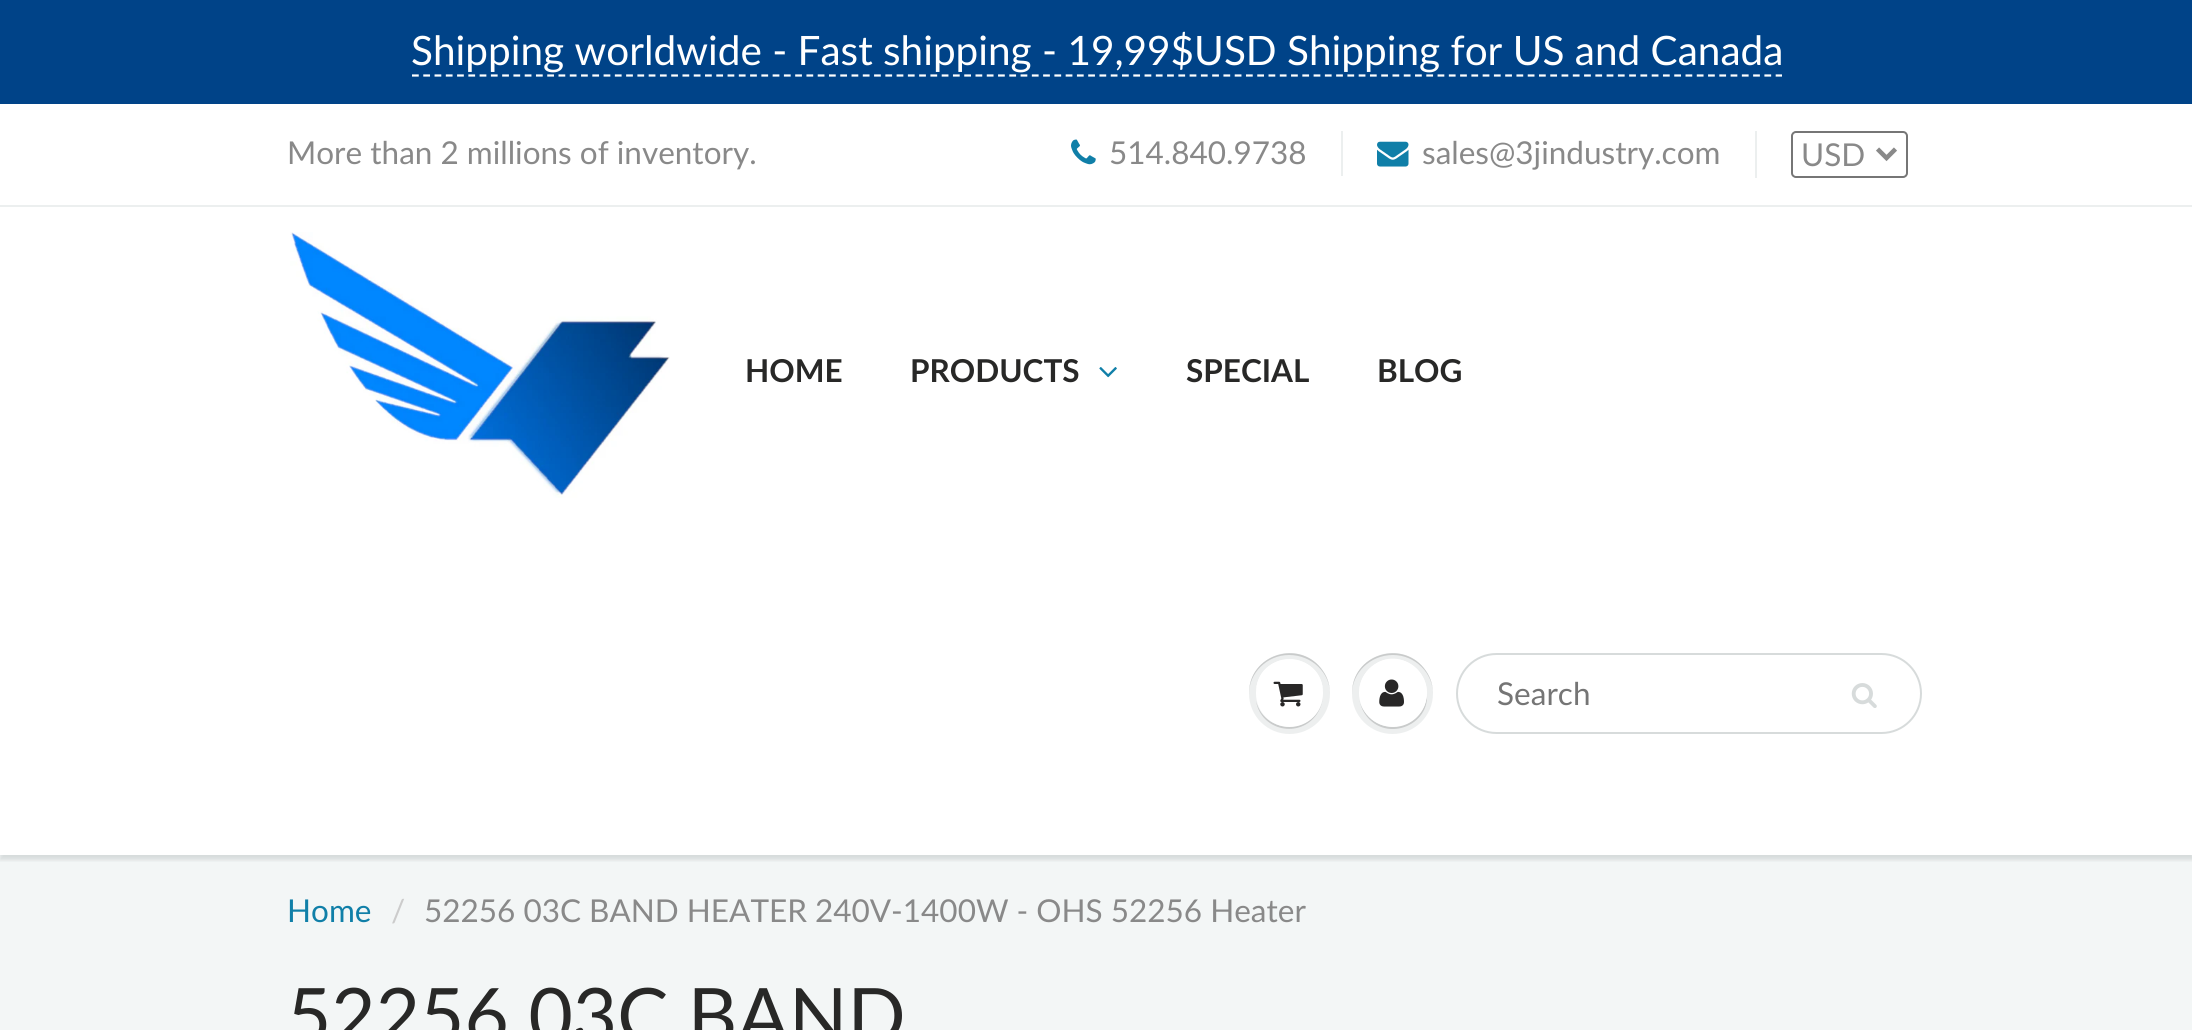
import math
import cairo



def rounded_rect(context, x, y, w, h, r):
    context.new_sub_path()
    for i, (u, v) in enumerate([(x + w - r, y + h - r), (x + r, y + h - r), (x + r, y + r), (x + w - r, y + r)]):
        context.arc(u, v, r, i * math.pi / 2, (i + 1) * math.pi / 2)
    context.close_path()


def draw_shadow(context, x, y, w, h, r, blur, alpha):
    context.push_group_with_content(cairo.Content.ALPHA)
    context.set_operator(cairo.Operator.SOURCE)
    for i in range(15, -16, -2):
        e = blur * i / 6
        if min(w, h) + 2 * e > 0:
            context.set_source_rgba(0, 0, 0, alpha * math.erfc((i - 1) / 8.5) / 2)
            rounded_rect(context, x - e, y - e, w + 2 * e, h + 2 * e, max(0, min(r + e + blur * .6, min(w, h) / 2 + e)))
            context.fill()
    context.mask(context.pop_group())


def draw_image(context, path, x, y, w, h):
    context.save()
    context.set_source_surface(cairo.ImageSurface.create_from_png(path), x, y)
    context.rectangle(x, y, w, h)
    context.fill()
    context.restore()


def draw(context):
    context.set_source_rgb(1, 1, 1)
    context.paint()
    context.set_source_rgb(0, 67 / 255, 136 / 255)
    context.rectangle(0, 0, 2192, 104)
    context.fill()
    context.new_path()
    context.move_to(412, 75.5)
    context.line_to(1782, 75.5)
    context.set_source_rgb(1, 1, 1)
    context.set_line_width(2.2)
    context.set_dash([6.75, 4.52])
    context.stroke()
    draw_image(context, "images/1.png", 1071, 139, 25, 26)
    context.set_source_rgb(236 / 255, 239 / 255, 239 / 255)
    context.rectangle(1341, 131, 2, 45)
    context.fill()
    draw_image(context, "images/2.png", 1377, 141, 32, 26)
    context.rectangle(1755, 131, 2, 47)
    context.fill()
    rounded_rect(context, 1792, 132, 115, 45, 4)
    context.set_source_rgb(118 / 255, 118 / 255, 118 / 255)
    context.set_line_width(2)
    context.set_dash([])
    context.stroke()
    context.new_path()
    context.move_to(1877.5, 149)
    context.line_to(1886.5, 158)
    context.line_to(1895.5, 149)
    context.set_source_rgb(137 / 255, 137 / 255, 137 / 255)
    context.set_line_width(4.5)
    context.stroke()
    context.set_source_rgb(243 / 255, 246 / 255, 246 / 255)
    context.rectangle(0, 855, 2192, 175)
    context.fill()
    context.save()
    context.rectangle(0, 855, 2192, 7)
    context.clip()
    context.set_source_rgb(11 / 255, 25 / 255, 28 / 255)
    draw_shadow(context, 0, 209, 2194, 651, 0, 2, 0.12)
    context.restore()
    context.set_source_rgb(236 / 255, 239 / 255, 239 / 255)
    context.rectangle(0, 205, 2192, 2)
    context.fill()
    draw_image(context, "images/3.png", 290, 232, 380, 266)
    draw_image(context, "images/4.png", 1099, 367, 18, 11)
    context.set_source_rgb(237 / 255, 239 / 255, 239 / 255)
    context.arc(1289.5, 693.5, 40.5, 0, 2 * math.pi)
    context.fill()
    context.set_source_rgb(201 / 255, 203 / 255, 203 / 255)
    context.new_path()
    context.move_to(1323, 694)
    context.curve_to(1322, 733, 1266, 739, 1256, 701)
    context.curve_to(1261, 731, 1300, 739, 1317, 714)
    context.curve_to(1321, 708, 1323, 701, 1323, 694)
    context.close_path()
    context.fill()
    context.new_path()
    context.move_to(1289, 655)
    context.curve_to(1312, 655, 1330, 673, 1330, 694)
    context.curve_to(1330, 686, 1328, 678, 1323, 671)
    context.curve_to(1301, 638, 1248, 654, 1249, 694)
    context.curve_to(1249, 673, 1267, 655, 1289, 655)
    context.close_path()
    context.fill()
    context.set_source_rgb(1, 1, 1)
    rounded_rect(context, 1256, 659, 67, 68, 33.5)
    context.fill()
    context.new_path()
    context.move_to(1289, 662)
    context.curve_to(1308, 662, 1323, 677, 1323, 694)
    context.curve_to(1324, 648, 1255, 648, 1256, 694)
    context.curve_to(1256, 677, 1271, 662, 1289, 662)
    context.close_path()
    context.fill()
    draw_image(context, "images/5.png", 1273, 681, 30, 26)
    context.set_source_rgb(237 / 255, 239 / 255, 239 / 255)
    context.arc(1392.5, 693.5, 40.5, 0, 2 * math.pi)
    context.fill()
    context.set_source_rgb(201 / 255, 203 / 255, 203 / 255)
    context.new_path()
    context.move_to(1393, 655)
    context.curve_to(1415, 655, 1433, 673, 1433, 694)
    context.curve_to(1433, 686, 1431, 678, 1426, 671)
    context.curve_to(1404, 638, 1351, 654, 1352, 694)
    context.curve_to(1352, 673, 1370, 655, 1393, 655)
    context.close_path()
    context.fill()
    context.new_path()
    context.move_to(1359, 694)
    context.curve_to(1359, 701, 1361, 708, 1365, 714)
    context.curve_to(1386, 745, 1435, 724, 1426, 688)
    context.curve_to(1432, 722, 1386, 742, 1365, 712)
    context.curve_to(1361, 707, 1359, 701, 1359, 694)
    context.close_path()
    context.fill()
    context.set_source_rgb(1, 1, 1)
    context.arc(1393, 693, 34, 0, 2 * math.pi)
    context.fill()
    context.new_path()
    context.move_to(1393, 662)
    context.curve_to(1417, 662, 1432, 687, 1423, 708)
    context.curve_to(1440, 675, 1397, 641, 1369, 669)
    context.curve_to(1362, 676, 1359, 685, 1359, 694)
    context.curve_to(1360, 676, 1374, 662, 1393, 662)
    context.close_path()
    context.fill()
    draw_image(context, "images/6.png", 1379, 679, 25, 28)
    rounded_rect(context, 1457, 654, 464, 79, 39.5)
    context.set_source_rgb(215 / 255, 219 / 255, 219 / 255)
    context.set_line_width(2)
    context.stroke()
    draw_image(context, "images/7.png", 1851, 683, 26, 25)
    context.select_font_face("Lato")
    context.set_font_size(40.5)
    context.set_source_rgb(1, 1, 1)
    context.move_to(411, 65)
    context.show_text("Shipping worldwide - Fast shipping - 19,99$USD Shipping for US and Canada")
    context.set_font_size(31.5)
    context.set_source_rgb(137 / 255, 137 / 255, 137 / 255)
    context.move_to(287, 164)
    context.show_text("More than 2 millions of inventory.")
    context.move_to(1109, 164)
    context.show_text("514.840.9738")
    context.move_to(1422, 164)
    context.show_text("sales@3jindustry.com")
    context.move_to(1801, 166)
    context.show_text("USD")
    context.select_font_face("Lato", cairo.FontSlant.NORMAL, cairo.FontWeight.BOLD)
    context.set_source_rgb(40 / 255, 40 / 255, 39 / 255)
    context.move_to(745, 382)
    context.show_text("HOME")
    context.move_to(910, 382)
    context.show_text("PRODUCTS")
    context.move_to(1186, 382)
    context.show_text("SPECIAL")
    context.move_to(1377, 382)
    context.show_text("BLOG")
    context.select_font_face("Lato")
    context.set_source_rgb(117 / 255, 117 / 255, 117 / 255)
    context.move_to(1497, 705)
    context.show_text("Search")
    context.set_source_rgb(16 / 255, 127 / 255, 168 / 255)
    context.move_to(287, 922)
    context.show_text("Home")
    context.set_source_rgb(204 / 255, 204 / 255, 204 / 255)
    context.move_to(391, 922)
    context.show_text("/")
    context.set_source_rgb(137 / 255, 137 / 255, 137 / 255)
    context.move_to(424, 922)
    context.show_text("52256 03C BAND HEATER 240V-1400W - OHS 52256 Heater")
    context.set_font_size(76.5)
    context.set_source_rgb(40 / 255, 40 / 255, 39 / 255)
    context.move_to(287, 1043)
    context.show_text("52256 03C BAND")


surface = cairo.ImageSurface(cairo.Format.RGB24, 2192, 1030)
context = cairo.Context(surface)
options = cairo.FontOptions()
options.set_hint_metrics(cairo.HintMetrics.OFF)
options.set_hint_style(cairo.HintStyle.NONE)
context.set_font_options(options)
context.set_miter_limit(4)
draw(context)
surface.write_to_png("out.png")
